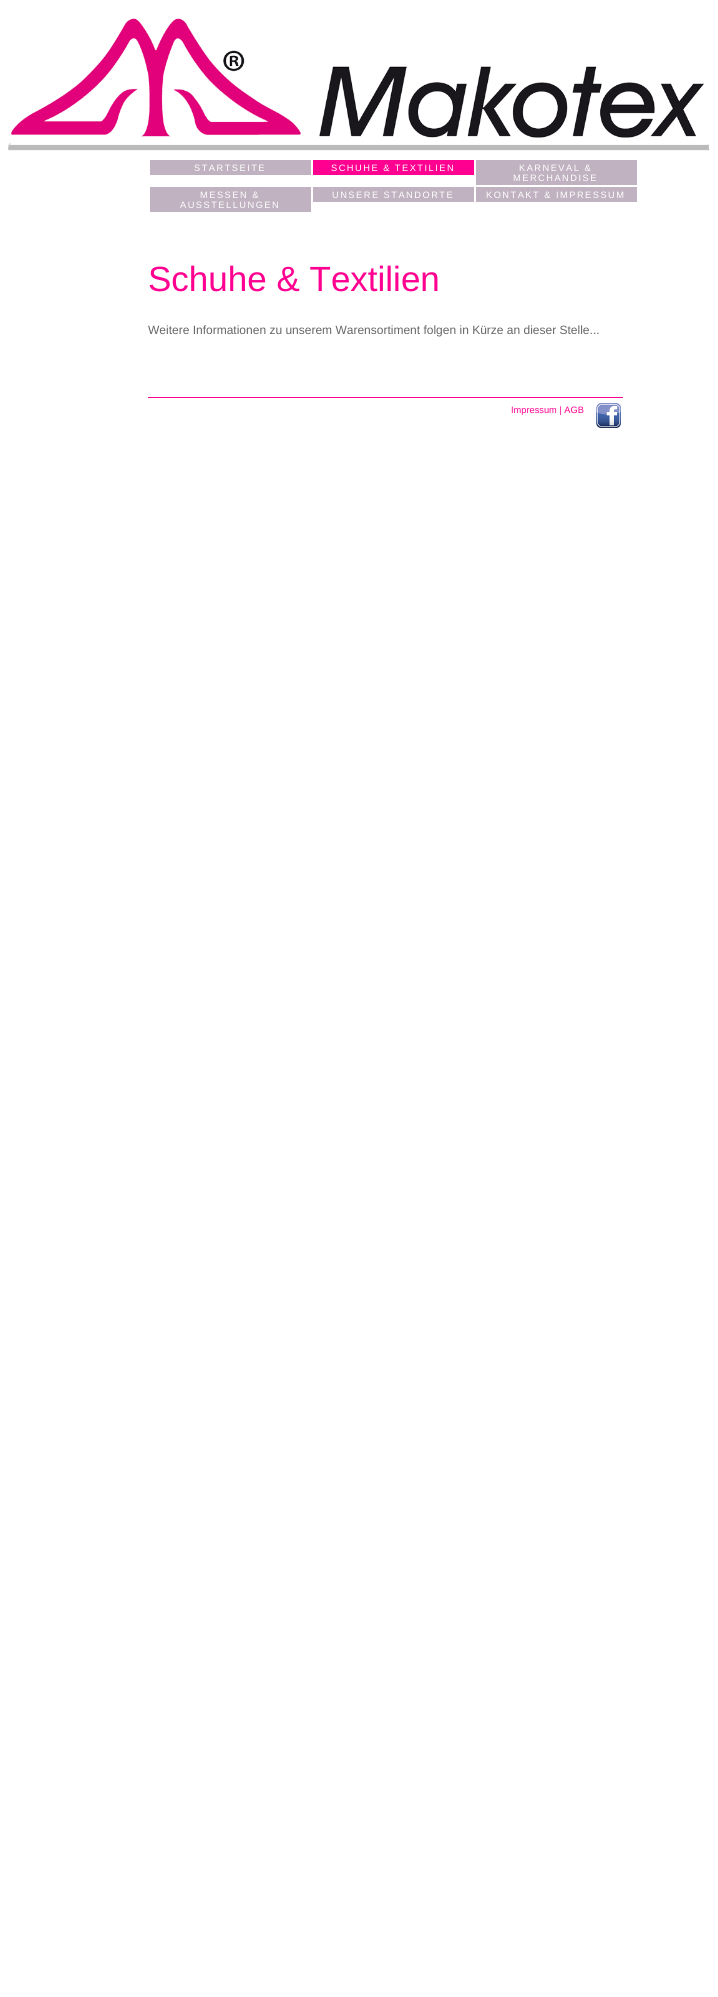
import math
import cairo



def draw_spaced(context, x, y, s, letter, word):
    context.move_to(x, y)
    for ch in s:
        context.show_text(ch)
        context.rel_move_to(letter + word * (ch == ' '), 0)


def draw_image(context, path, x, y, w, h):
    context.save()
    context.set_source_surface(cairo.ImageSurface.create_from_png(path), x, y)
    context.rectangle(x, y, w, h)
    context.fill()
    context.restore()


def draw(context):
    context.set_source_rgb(1, 1, 1)
    context.paint()
    draw_image(context, "images/1.png", 8, 18, 702, 133)
    context.set_source_rgb(192 / 255, 178 / 255, 192 / 255)
    context.rectangle(150, 160, 161, 15)
    context.fill()
    context.set_source_rgb(1, 0, 144 / 255)
    context.rectangle(313, 160, 161, 15)
    context.fill()
    context.set_source_rgb(192 / 255, 178 / 255, 192 / 255)
    context.rectangle(476, 160, 161, 25)
    context.fill()
    context.rectangle(150, 187, 161, 25)
    context.fill()
    context.rectangle(313, 187, 161, 15)
    context.fill()
    context.rectangle(476, 187, 161, 15)
    context.fill()
    context.set_source_rgb(1, 0, 144 / 255)
    context.rectangle(148, 397, 475, 1)
    context.fill()
    draw_image(context, "images/2.png", 596, 403, 25, 25)
    context.select_font_face("Liberation Sans")
    context.set_font_size(9.25)
    context.set_source_rgb(1, 1, 1)
    draw_spaced(context, 194, 171, "STARTSEITE", 1.5, 0)
    draw_spaced(context, 331, 171, "SCHUHE & TEXTILIEN", 1.5, 0)
    draw_spaced(context, 519, 171, "KARNEVAL &", 1.5, 0)
    draw_spaced(context, 513, 181, "MERCHANDISE", 1.5, 0)
    draw_spaced(context, 200, 198, "MESSEN &", 1.5, 0)
    draw_spaced(context, 180, 208, "AUSSTELLUNGEN", 1.5, 0)
    draw_spaced(context, 332, 198, "UNSERE STANDORTE", 1.5, 0)
    draw_spaced(context, 486, 198, "KONTAKT & IMPRESSUM", 1.5, 0)
    context.set_font_size(35)
    context.set_source_rgb(1, 0, 144 / 255)
    context.move_to(148, 291)
    context.show_text("Schuhe & Textilien")
    context.set_font_size(12)
    context.set_source_rgb(102 / 255, 102 / 255, 102 / 255)
    context.move_to(148, 334)
    context.show_text("Weitere Informationen zu unserem Warensortiment folgen in Kürze an dieser Stelle...")
    context.set_font_size(9.25)
    context.set_source_rgb(1, 0, 144 / 255)
    context.move_to(511, 413)
    context.show_text("Impressum | AGB")


surface = cairo.ImageSurface(cairo.Format.RGB24, 718, 1997)
context = cairo.Context(surface)
options = cairo.FontOptions()
options.set_hint_metrics(cairo.HintMetrics.OFF)
options.set_hint_style(cairo.HintStyle.NONE)
context.set_font_options(options)
context.set_miter_limit(4)
draw(context)
surface.write_to_png("out.png")
